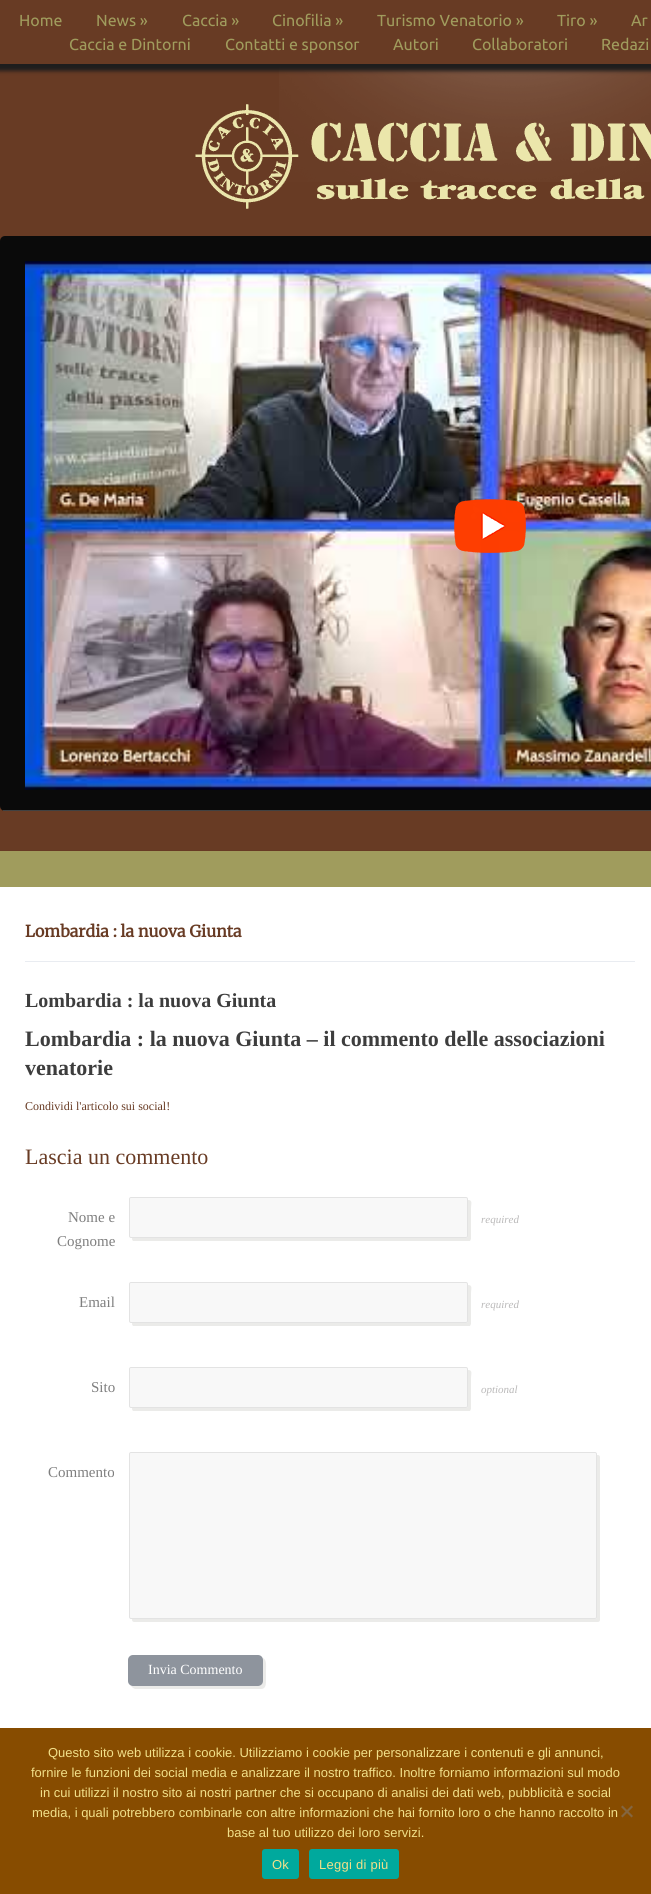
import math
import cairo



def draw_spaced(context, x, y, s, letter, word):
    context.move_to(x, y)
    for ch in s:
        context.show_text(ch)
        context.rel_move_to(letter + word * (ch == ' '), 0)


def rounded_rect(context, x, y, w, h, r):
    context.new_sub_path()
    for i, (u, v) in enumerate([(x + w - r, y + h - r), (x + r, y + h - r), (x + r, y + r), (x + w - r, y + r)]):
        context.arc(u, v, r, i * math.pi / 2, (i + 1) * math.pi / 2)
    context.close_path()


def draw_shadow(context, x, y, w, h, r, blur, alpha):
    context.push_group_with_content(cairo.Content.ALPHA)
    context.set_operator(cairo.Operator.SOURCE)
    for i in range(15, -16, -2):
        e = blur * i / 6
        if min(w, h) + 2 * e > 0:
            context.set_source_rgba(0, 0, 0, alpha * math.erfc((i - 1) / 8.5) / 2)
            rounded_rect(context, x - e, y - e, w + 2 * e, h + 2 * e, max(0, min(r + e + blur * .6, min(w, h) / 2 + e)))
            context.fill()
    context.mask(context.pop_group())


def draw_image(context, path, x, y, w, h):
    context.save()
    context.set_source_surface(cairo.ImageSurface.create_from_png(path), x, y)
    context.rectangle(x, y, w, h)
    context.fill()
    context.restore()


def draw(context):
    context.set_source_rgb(160 / 255, 156 / 255, 93 / 255)
    context.paint()
    context.set_source_rgb(104 / 255, 59 / 255, 36 / 255)
    context.rectangle(0, 66, 651, 785)
    context.fill()
    draw_image(context, "images/1.png", 279, 66, 372, 116)
    context.set_source_rgb(30 / 255, 29 / 255, 29 / 255)
    draw_shadow(context, -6, -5, 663, 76, 0, 2, 1)
    context.set_source_rgb(104 / 255, 59 / 255, 36 / 255)
    context.rectangle(0, 0, 651, 64)
    context.fill()
    draw_image(context, "images/2.png", 195, 104, 456, 105)
    context.set_source_rgb(10 / 255, 10 / 255, 10 / 255)
    rounded_rect(context, 0, 236, 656, 575, 5)
    context.fill()
    context.set_source_rgb(65 / 255, 65 / 255, 65 / 255)
    context.rectangle(3, 810, 648, 1)
    context.fill()
    draw_image(context, "images/3.png", 25, 261, 626, 529)
    draw_image(context, "images/4.png", 454, 499, 72, 54)
    context.set_source_rgb(1, 1, 1)
    context.rectangle(0, 887, 651, 841)
    context.fill()
    context.set_source_rgb(233 / 255, 236 / 255, 241 / 255)
    context.rectangle(25, 961, 610, 1)
    context.fill()
    context.set_source_rgb(235 / 255, 235 / 255, 233 / 255)
    context.new_path()
    context.move_to(132, 1238)
    context.curve_to(132, 1239, 132, 1240, 133, 1241)
    context.line_to(470, 1241)
    context.line_to(471, 1239)
    context.line_to(471, 1208)
    context.curve_to(471, 1204, 473, 1200, 468, 1200)
    context.line_to(468, 1236)
    context.curve_to(468, 1237, 467, 1238, 466, 1238)
    context.close_path()
    context.fill()
    context.set_source_rgb(248 / 255, 248 / 255, 248 / 255)
    rounded_rect(context, 129.5, 1197.5, 338, 40, 1.5)
    context.fill_preserve()
    context.set_source_rgb(227 / 255, 227 / 255, 227 / 255)
    context.set_line_width(1)
    context.stroke()
    context.set_source_rgb(235 / 255, 235 / 255, 233 / 255)
    context.new_path()
    context.move_to(132, 1323)
    context.curve_to(132, 1324, 132, 1325, 133, 1326)
    context.line_to(470, 1326)
    context.line_to(471, 1324)
    context.line_to(471, 1293)
    context.curve_to(471, 1289, 473, 1285, 468, 1285)
    context.line_to(468, 1321)
    context.curve_to(468, 1322, 467, 1323, 466, 1323)
    context.close_path()
    context.fill()
    context.set_source_rgb(248 / 255, 248 / 255, 248 / 255)
    rounded_rect(context, 129.5, 1282.5, 338, 40, 1.5)
    context.fill_preserve()
    context.set_source_rgb(227 / 255, 227 / 255, 227 / 255)
    context.stroke()
    context.set_source_rgb(235 / 255, 235 / 255, 233 / 255)
    context.new_path()
    context.move_to(132, 1408)
    context.curve_to(132, 1409, 132, 1410, 133, 1411)
    context.line_to(470, 1411)
    context.line_to(471, 1409)
    context.line_to(471, 1378)
    context.curve_to(471, 1374, 473, 1370, 468, 1370)
    context.line_to(468, 1406)
    context.curve_to(468, 1407, 467, 1408, 466, 1408)
    context.close_path()
    context.fill()
    context.set_source_rgb(248 / 255, 248 / 255, 248 / 255)
    rounded_rect(context, 129.5, 1367.5, 338, 40, 1.5)
    context.fill_preserve()
    context.set_source_rgb(227 / 255, 227 / 255, 227 / 255)
    context.stroke()
    context.set_source_rgb(235 / 255, 235 / 255, 233 / 255)
    context.new_path()
    context.move_to(132, 1619)
    context.line_to(132, 1620)
    context.curve_to(132, 1621, 133, 1622, 134, 1622)
    context.line_to(598, 1622)
    context.curve_to(599, 1622, 600, 1621, 600, 1620)
    context.line_to(600, 1457)
    context.curve_to(600, 1456, 599, 1455, 598, 1455)
    context.line_to(597, 1455)
    context.line_to(597, 1617)
    context.curve_to(597, 1618, 596, 1619, 595, 1619)
    context.close_path()
    context.fill()
    context.set_source_rgb(248 / 255, 248 / 255, 248 / 255)
    rounded_rect(context, 129.5, 1452.5, 467, 166, 1.5)
    context.fill_preserve()
    context.set_source_rgb(227 / 255, 227 / 255, 227 / 255)
    context.stroke()
    context.set_source_rgb(235 / 255, 235 / 255, 233 / 255)
    context.new_path()
    context.move_to(131, 1686)
    context.line_to(133, 1688)
    context.line_to(135, 1689)
    context.line_to(261, 1689)
    context.curve_to(266, 1689, 266, 1684, 266, 1680)
    context.line_to(266, 1670)
    context.curve_to(266, 1666, 267, 1660, 263, 1658)
    context.line_to(263, 1674)
    context.curve_to(263, 1678, 264, 1686, 258, 1686)
    context.close_path()
    context.fill()
    context.set_source_rgb(142 / 255, 148 / 255, 157 / 255)
    rounded_rect(context, 128, 1655, 135, 31, 5)
    context.fill()
    context.set_source_rgb(135 / 255, 76 / 255, 0)
    context.rectangle(0, 1728, 651, 166)
    context.fill()
    context.set_source_rgb(132 / 255, 102 / 255, 64 / 255)
    context.new_path()
    context.move_to(631.5, 1805.5)
    context.line_to(633, 1807)
    context.line_to(622.5, 1817.5)
    context.line_to(621, 1816)
    context.close_path()
    context.fill()
    context.new_path()
    context.move_to(621, 1807)
    context.line_to(622.5, 1805.5)
    context.line_to(633, 1816)
    context.line_to(631.5, 1817.5)
    context.close_path()
    context.fill()
    context.set_source_rgb(0, 169 / 255, 157 / 255)
    rounded_rect(context, 262, 1849, 37, 30, 3)
    context.fill()
    rounded_rect(context, 309, 1849, 90, 30, 3)
    context.fill()
    context.select_font_face("Ubuntu")
    context.set_font_size(16)
    context.set_source_rgb(160 / 255, 156 / 255, 93 / 255)
    context.move_to(19, 26)
    context.show_text("Home")
    context.move_to(96, 26)
    context.show_text("News »")
    context.move_to(182, 26)
    context.show_text("Caccia »")
    context.move_to(272, 26)
    context.show_text("Cinofilia »")
    context.move_to(377, 26)
    context.show_text("Turismo Venatorio »")
    context.move_to(557, 26)
    context.show_text("Tiro »")
    context.move_to(631, 26)
    context.show_text("Ar")
    context.move_to(69, 50)
    context.show_text("Caccia e Dintorni")
    context.move_to(225, 50)
    context.show_text("Contatti e sponsor")
    context.move_to(393, 50)
    context.show_text("Autori")
    context.move_to(472, 50)
    context.show_text("Collaboratori")
    context.move_to(601, 50)
    context.show_text("Redazi")
    context.select_font_face("Merriweather", cairo.FontSlant.NORMAL, cairo.FontWeight.BOLD)
    context.set_source_rgb(104 / 255, 59 / 255, 36 / 255)
    context.move_to(25, 937)
    context.show_text("Lombardia : la nuova Giunta")
    context.select_font_face("Liberation Serif", cairo.FontSlant.NORMAL, cairo.FontWeight.BOLD)
    context.set_font_size(20)
    context.set_source_rgb(61 / 255, 61 / 255, 61 / 255)
    context.move_to(25, 1007)
    context.show_text("Lombardia : la nuova Giunta")
    context.set_font_size(22)
    context.move_to(25, 1046)
    context.show_text("Lombardia : la nuova Giunta – il commento delle associazioni")
    context.move_to(25, 1075)
    context.show_text("venatorie")
    context.select_font_face("Liberation Serif")
    context.set_font_size(12)
    context.set_source_rgb(104 / 255, 59 / 255, 36 / 255)
    context.move_to(25, 1110)
    context.show_text("Condividi l'articolo sui social!")
    context.set_font_size(22)
    context.move_to(25, 1164)
    context.show_text("Lascia un commento")
    context.set_font_size(15)
    context.set_source_rgb(126 / 255, 126 / 255, 126 / 255)
    context.move_to(68, 1222)
    context.show_text("Nome e")
    context.move_to(57, 1246)
    context.show_text("Cognome")
    context.select_font_face("Liberation Serif", cairo.FontSlant.ITALIC)
    context.set_font_size(11)
    context.set_source_rgb(186 / 255, 185 / 255, 185 / 255)
    context.move_to(481, 1223)
    context.show_text("required")
    context.select_font_face("Liberation Serif")
    context.set_font_size(15)
    context.set_source_rgb(126 / 255, 126 / 255, 126 / 255)
    context.move_to(79, 1307)
    context.show_text("Email")
    context.select_font_face("Liberation Serif", cairo.FontSlant.ITALIC)
    context.set_font_size(11)
    context.set_source_rgb(186 / 255, 185 / 255, 185 / 255)
    context.move_to(481, 1308)
    context.show_text("required")
    context.select_font_face("Liberation Serif")
    context.set_font_size(15)
    context.set_source_rgb(126 / 255, 126 / 255, 126 / 255)
    context.move_to(91, 1392)
    context.show_text("Sito")
    context.select_font_face("Liberation Serif", cairo.FontSlant.ITALIC)
    context.set_font_size(11)
    context.set_source_rgb(186 / 255, 185 / 255, 185 / 255)
    context.move_to(481, 1393)
    context.show_text("optional")
    context.select_font_face("Liberation Serif")
    context.set_font_size(15)
    context.set_source_rgb(126 / 255, 126 / 255, 126 / 255)
    context.move_to(48, 1477)
    context.show_text("Commento")
    context.set_font_size(14)
    context.set_source_rgb(1, 1, 1)
    context.move_to(148, 1674)
    context.show_text("Invia Commento")
    context.select_font_face("Liberation Sans")
    context.set_font_size(13)
    context.set_source_rgb(242 / 255, 224 / 255, 138 / 255)
    context.move_to(48, 1757)
    context.show_text("Questo sito web utilizza i cookie. Utilizziamo i cookie per personalizzare i contenuti e gli annunci,")
    context.move_to(31, 1777)
    context.show_text("fornire le funzioni dei social media e analizzare il nostro traffico. Inoltre forniamo informazioni sul modo")
    context.move_to(40, 1797)
    context.show_text("in cui utilizzi il nostro sito ai nostri partner che si occupano di analisi dei dati web, pubblicità e social")
    context.move_to(32, 1817)
    context.show_text("media, i quali potrebbero combinarle con altre informazioni che hai fornito loro o che hanno raccolto in")
    context.move_to(227, 1837)
    context.show_text("base al tuo utilizzo dei loro servizi.")
    draw_spaced(context, 272, 1869, "Ok", 0.25, 0)
    draw_spaced(context, 319, 1869, "Leggi di più", 0.25, 0)


surface = cairo.ImageSurface(cairo.Format.RGB24, 651, 1894)
context = cairo.Context(surface)
options = cairo.FontOptions()
options.set_hint_metrics(cairo.HintMetrics.OFF)
options.set_hint_style(cairo.HintStyle.NONE)
context.set_font_options(options)
context.set_miter_limit(4)
draw(context)
surface.write_to_png("out.png")
